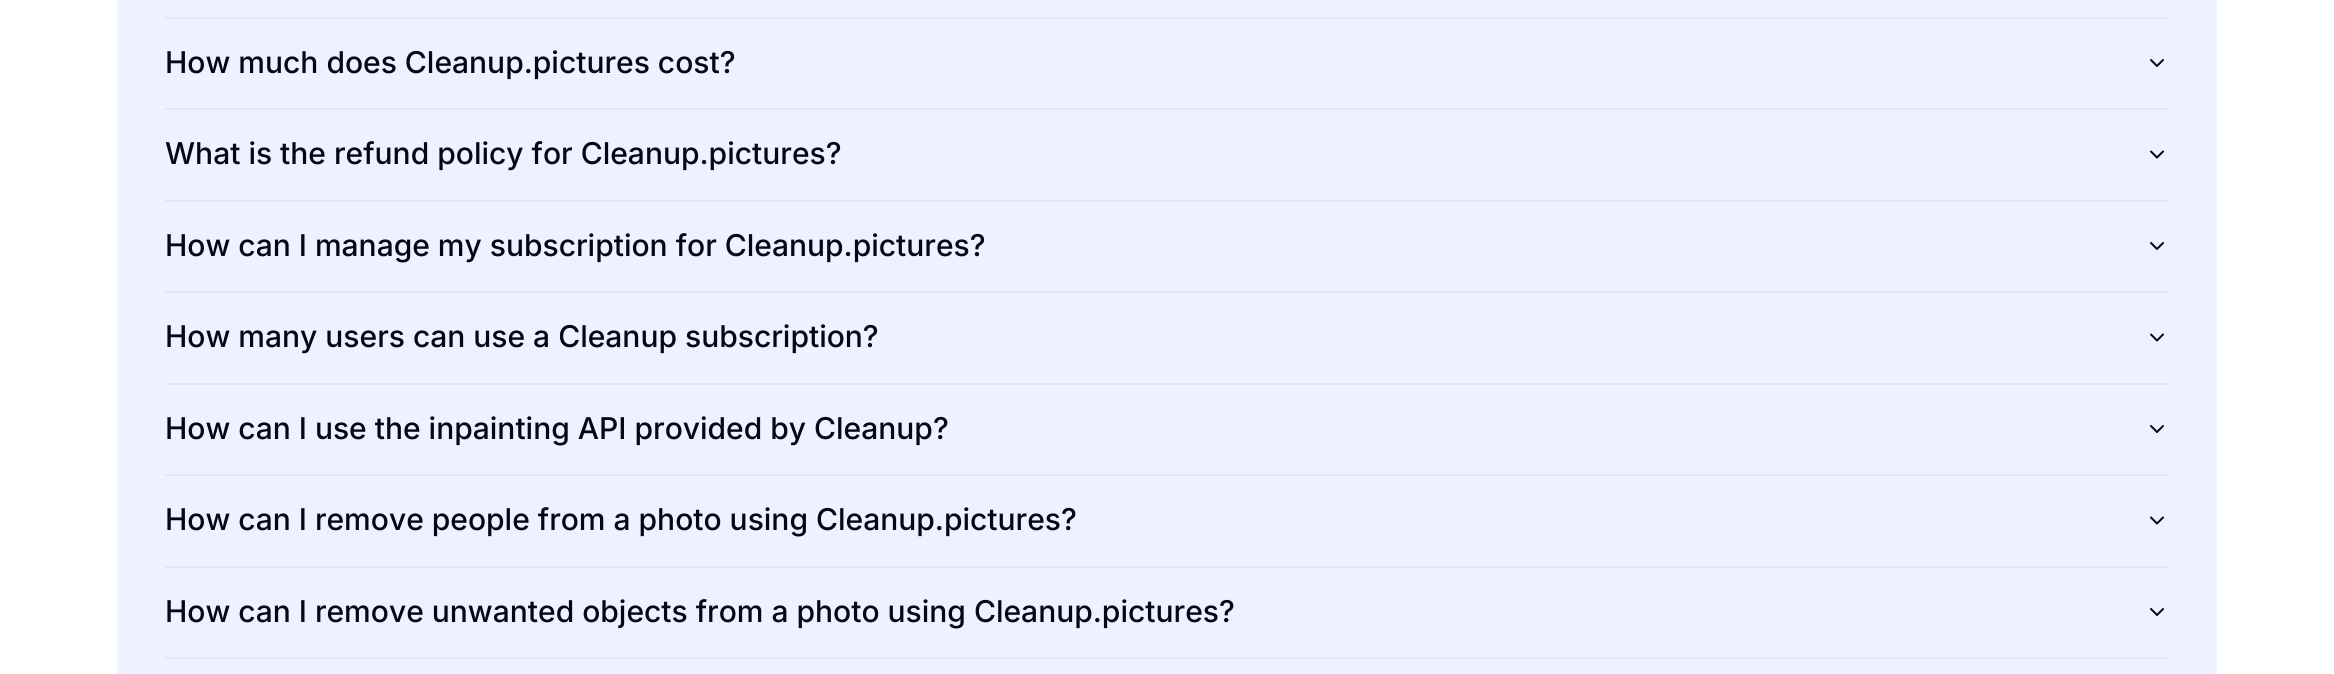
import math
import cairo



def draw(context):
    context.set_source_rgb(1, 1, 1)
    context.paint()
    context.set_source_rgb(238 / 255, 242 / 255, 1)
    context.rectangle(117, 0, 2100, 674)
    context.fill()
    context.set_source_rgb(226 / 255, 232 / 255, 240 / 255)
    context.rectangle(165, 17, 2004, 2)
    context.fill()
    context.rectangle(165, 108, 2004, 2)
    context.fill()
    context.new_path()
    context.move_to(2151, 60)
    context.line_to(2157, 66)
    context.line_to(2163, 60)
    context.set_source_rgb(2 / 255, 8 / 255, 23 / 255)
    context.set_line_cap(cairo.LineCap.ROUND)
    context.set_line_join(cairo.LineJoin.ROUND)
    context.stroke()
    context.set_source_rgb(226 / 255, 232 / 255, 240 / 255)
    context.rectangle(165, 200, 2004, 2)
    context.fill()
    context.new_path()
    context.move_to(2151, 151.5)
    context.line_to(2157, 157.5)
    context.line_to(2163, 151.5)
    context.set_source_rgb(2 / 255, 8 / 255, 23 / 255)
    context.stroke()
    context.set_source_rgb(226 / 255, 232 / 255, 240 / 255)
    context.rectangle(165, 291, 2004, 2)
    context.fill()
    context.new_path()
    context.move_to(2151, 243)
    context.line_to(2157, 249)
    context.line_to(2163, 243)
    context.set_source_rgb(2 / 255, 8 / 255, 23 / 255)
    context.stroke()
    context.set_source_rgb(226 / 255, 232 / 255, 240 / 255)
    context.rectangle(165, 383, 2004, 2)
    context.fill()
    context.new_path()
    context.move_to(2151, 334.5)
    context.line_to(2157, 340.5)
    context.line_to(2163, 334.5)
    context.set_source_rgb(2 / 255, 8 / 255, 23 / 255)
    context.stroke()
    context.set_source_rgb(226 / 255, 232 / 255, 240 / 255)
    context.rectangle(165, 474, 2004, 2)
    context.fill()
    context.new_path()
    context.move_to(2151, 426)
    context.line_to(2157, 432)
    context.line_to(2163, 426)
    context.set_source_rgb(2 / 255, 8 / 255, 23 / 255)
    context.stroke()
    context.set_source_rgb(226 / 255, 232 / 255, 240 / 255)
    context.rectangle(165, 566, 2004, 2)
    context.fill()
    context.new_path()
    context.move_to(2151, 517.5)
    context.line_to(2157, 523.5)
    context.line_to(2163, 517.5)
    context.set_source_rgb(2 / 255, 8 / 255, 23 / 255)
    context.stroke()
    context.set_source_rgb(226 / 255, 232 / 255, 240 / 255)
    context.rectangle(165, 657, 2004, 2)
    context.fill()
    context.new_path()
    context.move_to(2151, 609)
    context.line_to(2157, 615)
    context.line_to(2163, 609)
    context.set_source_rgb(2 / 255, 8 / 255, 23 / 255)
    context.stroke()
    context.select_font_face("Inter Medium")
    context.set_font_size(30)
    context.move_to(165, 73)
    context.show_text("How much does Cleanup.pictures cost?")
    context.move_to(165, 164)
    context.show_text("What is the refund policy for Cleanup.pictures?")
    context.move_to(165, 256)
    context.show_text("How can I manage my subscription for Cleanup.pictures?")
    context.move_to(165, 347)
    context.show_text("How many users can use a Cleanup subscription?")
    context.move_to(165, 439)
    context.show_text("How can I use the inpainting API provided by Cleanup?")
    context.move_to(165, 530)
    context.show_text("How can I remove people from a photo using Cleanup.pictures?")
    context.move_to(165, 622)
    context.show_text("How can I remove unwanted objects from a photo using Cleanup.pictures?")


surface = cairo.ImageSurface(cairo.Format.RGB24, 2334, 674)
context = cairo.Context(surface)
options = cairo.FontOptions()
options.set_hint_metrics(cairo.HintMetrics.OFF)
options.set_hint_style(cairo.HintStyle.NONE)
context.set_font_options(options)
context.set_miter_limit(4)
draw(context)
surface.write_to_png("out.png")
